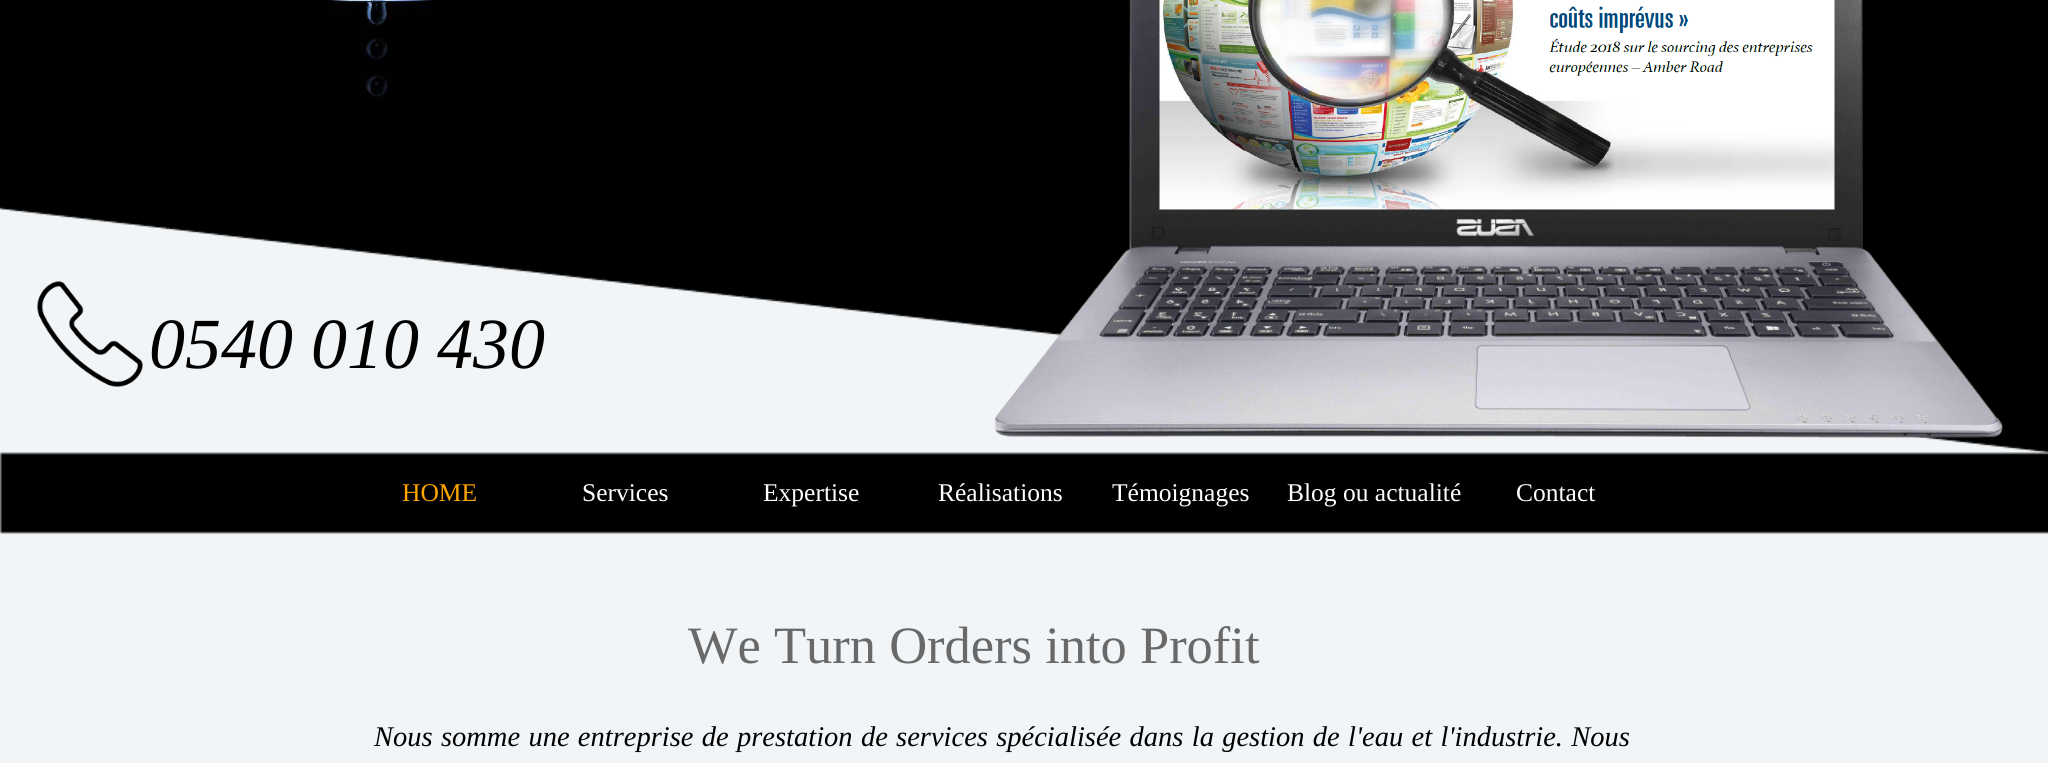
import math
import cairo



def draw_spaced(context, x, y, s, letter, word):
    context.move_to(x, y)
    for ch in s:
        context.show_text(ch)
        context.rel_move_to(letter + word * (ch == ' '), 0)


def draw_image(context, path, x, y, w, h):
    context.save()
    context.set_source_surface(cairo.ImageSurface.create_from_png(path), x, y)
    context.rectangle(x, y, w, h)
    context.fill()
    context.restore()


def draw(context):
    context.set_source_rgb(242 / 255, 245 / 255, 247 / 255)
    context.paint()
    draw_image(context, "images/1.png", 0, 0, 2048, 453)
    draw_image(context, "images/2.png", 328, 0, 106, 100)
    draw_image(context, "images/3.png", 994, 0, 1009, 438)
    draw_image(context, "images/4.png", 1159, 0, 676, 210)
    draw_image(context, "images/5.png", 37, 281, 106, 106)
    draw_image(context, "images/6.png", 0, 452, 2048, 82)
    context.select_font_face("Liberation Serif", cairo.FontSlant.ITALIC)
    context.set_font_size(72)
    context.set_source_rgb(0, 0, 0)
    context.move_to(149, 368)
    context.show_text("0540 010 430")
    context.select_font_face("Liberation Serif")
    context.set_font_size(25.5)
    context.set_source_rgb(1, 165 / 255, 0)
    context.move_to(402, 501)
    context.show_text("HOME")
    context.set_source_rgb(1, 1, 1)
    context.move_to(582, 501)
    context.show_text("Services")
    context.move_to(763, 501)
    context.show_text("Expertise")
    context.move_to(938, 501)
    context.show_text("Réalisations")
    context.move_to(1112, 501)
    context.show_text("Témoignages")
    context.move_to(1287, 501)
    context.show_text("Blog ou actualité")
    context.move_to(1516, 501)
    context.show_text("Contact")
    context.set_font_size(52.5)
    context.set_source_rgb(105 / 255, 105 / 255, 105 / 255)
    context.move_to(688, 663)
    context.show_text("We Turn Orders into Profit")
    context.select_font_face("Liberation Serif", cairo.FontSlant.ITALIC)
    context.set_font_size(28.5)
    context.set_source_rgb(0, 0, 0)
    draw_spaced(context, 374, 746, "Nous somme une entreprise de prestation de services spécialisée dans la gestion de l'eau et l'industrie. Nous", 0, 1.2)


surface = cairo.ImageSurface(cairo.Format.RGB24, 2048, 763)
context = cairo.Context(surface)
options = cairo.FontOptions()
options.set_hint_metrics(cairo.HintMetrics.OFF)
options.set_hint_style(cairo.HintStyle.NONE)
context.set_font_options(options)
context.set_miter_limit(4)
draw(context)
surface.write_to_png("out.png")
